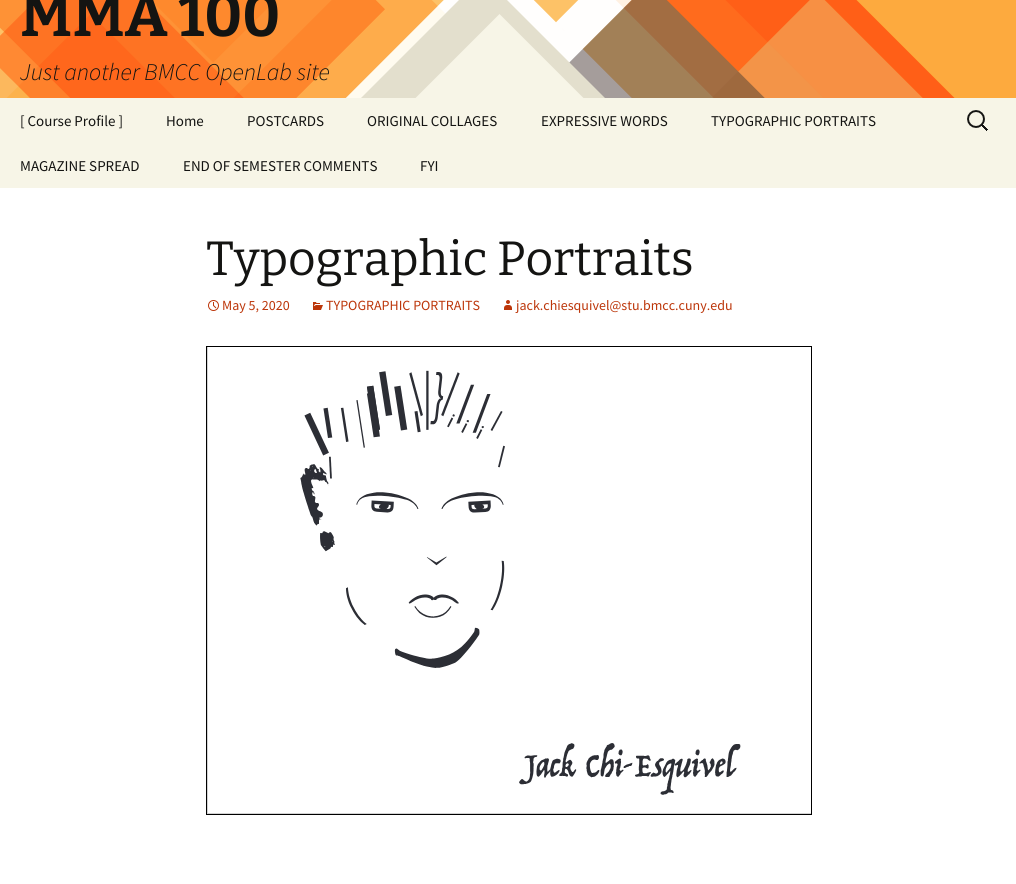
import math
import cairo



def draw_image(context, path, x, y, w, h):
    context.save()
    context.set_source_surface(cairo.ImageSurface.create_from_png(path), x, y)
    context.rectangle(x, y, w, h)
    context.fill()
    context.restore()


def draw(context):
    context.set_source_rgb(1, 1, 1)
    context.paint()
    draw_image(context, "images/1.png", 0, 0, 1016, 98)
    context.set_source_rgb(247 / 255, 245 / 255, 231 / 255)
    context.rectangle(0, 98, 1016, 90)
    context.fill()
    draw_image(context, "images/2.png", 967, 110, 21, 21)
    draw_image(context, "images/3.png", 208, 300, 11, 11)
    draw_image(context, "images/4.png", 313, 302, 10, 8)
    draw_image(context, "images/5.png", 504, 300, 8, 10)
    context.set_source_rgb(211 / 255, 211 / 255, 211 / 255)
    context.rectangle(206.5, 346.5, 605, 468)
    context.fill_preserve()
    context.set_source_rgb(0, 0, 0)
    context.set_line_width(1)
    context.stroke()
    context.set_source_rgb(1, 1, 1)
    context.rectangle(208, 347, 603, 466)
    context.fill()
    draw_image(context, "images/6.png", 300, 370, 441, 425)
    context.select_font_face("Bitter Thin")
    context.set_font_size(60)
    context.set_source_rgb(20 / 255, 20 / 255, 18 / 255)
    context.move_to(20, 36)
    context.show_text("MMA 100")
    context.select_font_face("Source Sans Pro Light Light", cairo.FontSlant.ITALIC)
    context.set_font_size(24)
    context.move_to(20, 80)
    context.show_text("Just another BMCC OpenLab site")
    context.select_font_face("Source Sans Pro")
    context.set_font_size(15)
    context.move_to(20, 126)
    context.show_text("[ Course Profile ]")
    context.move_to(166, 126)
    context.show_text("Home")
    context.move_to(247, 126)
    context.show_text("POSTCARDS")
    context.move_to(367, 126)
    context.show_text("ORIGINAL COLLAGES")
    context.move_to(541, 126)
    context.show_text("EXPRESSIVE WORDS")
    context.move_to(711, 126)
    context.show_text("TYPOGRAPHIC PORTRAITS")
    context.move_to(20, 171)
    context.show_text("MAGAZINE SPREAD")
    context.move_to(183, 171)
    context.show_text("END OF SEMESTER COMMENTS")
    context.move_to(420, 171)
    context.show_text("FYI")
    context.select_font_face("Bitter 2 Thin")
    context.set_font_size(48)
    context.move_to(206, 275)
    context.show_text("Typographic Portraits")
    context.select_font_face("Source Sans Pro")
    context.set_font_size(14)
    context.set_source_rgb(188 / 255, 54 / 255, 10 / 255)
    context.move_to(222, 310)
    context.show_text("May 5, 2020")
    context.move_to(326, 310)
    context.show_text("TYPOGRAPHIC PORTRAITS")
    context.move_to(516, 310)
    context.show_text("jack.chiesquivel@stu.bmcc.cuny.edu")


surface = cairo.ImageSurface(cairo.Format.RGB24, 1016, 884)
context = cairo.Context(surface)
options = cairo.FontOptions()
options.set_hint_metrics(cairo.HintMetrics.OFF)
options.set_hint_style(cairo.HintStyle.NONE)
context.set_font_options(options)
context.set_miter_limit(4)
draw(context)
surface.write_to_png("out.png")
